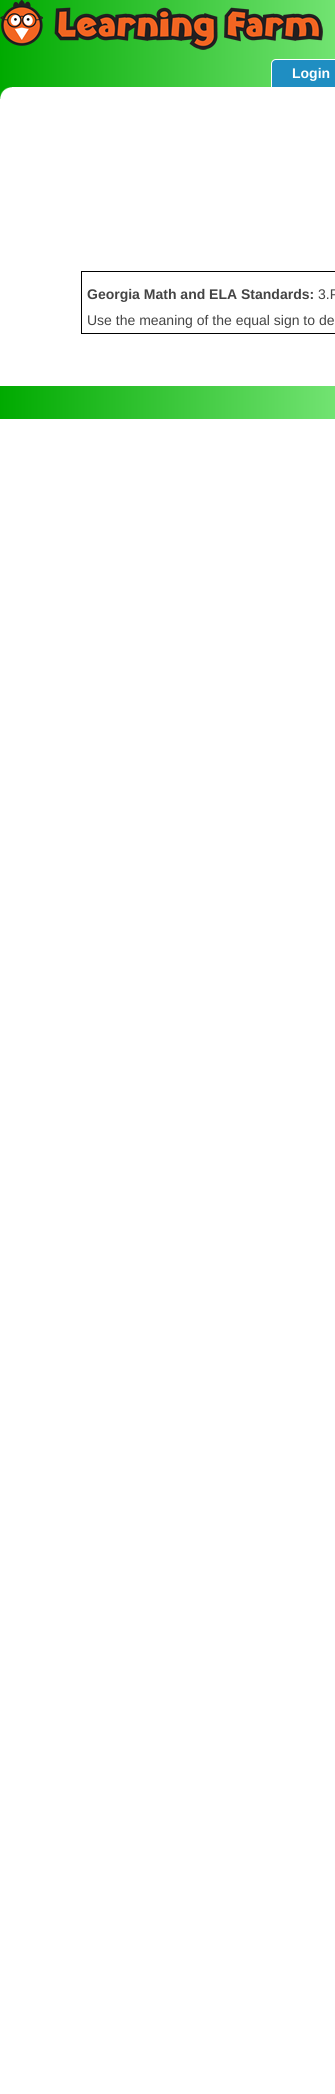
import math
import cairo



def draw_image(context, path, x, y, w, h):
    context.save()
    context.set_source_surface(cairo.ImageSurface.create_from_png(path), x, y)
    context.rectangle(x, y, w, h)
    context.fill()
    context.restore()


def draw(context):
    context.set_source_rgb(1, 1, 1)
    context.paint()
    gradient = cairo.LinearGradient(0, 44, 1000, 43)
    gradient.add_color_stop_rgba(0, 0, 170 / 255, 0, 1)
    gradient.add_color_stop_rgba(0.5, 170 / 255, 1, 170 / 255, 1)
    gradient.add_color_stop_rgba(1, 0, 170 / 255, 0, 1)
    context.set_source(gradient)
    context.rectangle(0, 0, 335, 87)
    context.fill()
    draw_image(context, "images/1.png", 0, 0, 323, 50)
    context.set_source_rgb(31 / 255, 142 / 255, 194 / 255)
    context.new_path()
    context.move_to(276, 59.5)
    context.line_to(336, 59.5)
    context.curve_to(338.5, 59.5, 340.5, 61.5, 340.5, 64)
    context.line_to(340.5, 87.5)
    context.line_to(271.5, 87.5)
    context.line_to(271.5, 64)
    context.curve_to(271.5, 61.5, 273.5, 59.5, 276, 59.5)
    context.close_path()
    context.fill_preserve()
    context.set_source_rgb(1, 1, 1)
    context.set_line_width(1)
    context.stroke()
    draw_image(context, "images/2.png", 0, 87, 12, 12)
    context.set_source_rgb(0, 0, 0)
    context.rectangle(81, 271, 254, 1)
    context.fill()
    context.rectangle(81, 333, 254, 1)
    context.fill()
    context.rectangle(81, 307, 1, 27)
    context.fill()
    context.rectangle(81, 271, 1, 37)
    context.fill()
    gradient = cairo.LinearGradient(0, 403, 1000, 402)
    gradient.add_color_stop_rgba(0, 0, 170 / 255, 0, 1)
    gradient.add_color_stop_rgba(0.5, 170 / 255, 1, 170 / 255, 1)
    gradient.add_color_stop_rgba(1, 0, 170 / 255, 0, 1)
    context.set_source(gradient)
    context.rectangle(0, 386, 335, 33)
    context.fill()
    context.select_font_face("Liberation Sans", cairo.FontSlant.NORMAL, cairo.FontWeight.BOLD)
    context.set_font_size(14)
    context.set_source_rgb(1, 1, 1)
    context.move_to(292, 78)
    context.show_text("Login")
    context.set_source_rgb(68 / 255, 68 / 255, 68 / 255)
    context.move_to(87, 299)
    context.show_text("Georgia Math and ELA Standards:")
    context.select_font_face("Liberation Sans")
    context.move_to(318, 299)
    context.show_text("3.P")
    context.move_to(87, 325)
    context.show_text("Use the meaning of the equal sign to de")


surface = cairo.ImageSurface(cairo.Format.RGB24, 335, 2094)
context = cairo.Context(surface)
options = cairo.FontOptions()
options.set_hint_metrics(cairo.HintMetrics.OFF)
options.set_hint_style(cairo.HintStyle.NONE)
context.set_font_options(options)
context.set_miter_limit(4)
draw(context)
surface.write_to_png("out.png")
